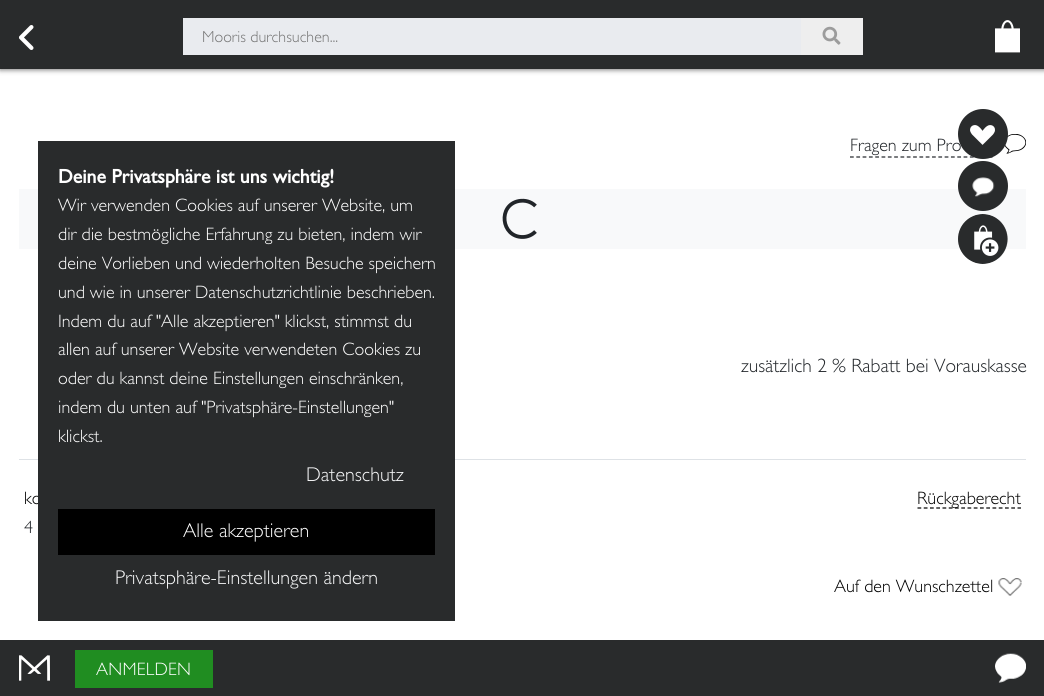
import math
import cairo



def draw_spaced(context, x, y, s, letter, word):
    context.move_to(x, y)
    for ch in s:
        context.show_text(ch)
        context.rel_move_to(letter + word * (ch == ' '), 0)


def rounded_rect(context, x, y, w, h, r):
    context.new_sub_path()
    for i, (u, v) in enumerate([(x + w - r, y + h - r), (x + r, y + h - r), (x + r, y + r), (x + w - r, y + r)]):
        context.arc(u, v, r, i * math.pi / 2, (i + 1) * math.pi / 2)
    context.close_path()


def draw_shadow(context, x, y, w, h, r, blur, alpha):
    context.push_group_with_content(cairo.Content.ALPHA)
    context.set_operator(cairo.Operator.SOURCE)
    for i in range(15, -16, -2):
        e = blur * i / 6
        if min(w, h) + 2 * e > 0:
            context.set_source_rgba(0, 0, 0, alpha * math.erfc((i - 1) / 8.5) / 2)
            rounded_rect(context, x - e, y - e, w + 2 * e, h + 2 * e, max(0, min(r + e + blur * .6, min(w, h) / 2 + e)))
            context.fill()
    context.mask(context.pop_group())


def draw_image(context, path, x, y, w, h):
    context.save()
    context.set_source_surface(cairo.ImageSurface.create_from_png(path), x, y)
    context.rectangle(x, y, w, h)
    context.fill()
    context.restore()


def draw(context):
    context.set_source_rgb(1, 1, 1)
    context.paint()
    context.set_source_rgb(0, 0, 0)
    draw_shadow(context, 0, 1, 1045, 69, 0, 2.5, 0.5)
    context.set_source_rgb(41 / 255, 43 / 255, 44 / 255)
    context.rectangle(0, 0, 1044, 69)
    context.fill()
    draw_image(context, "images/1.png", 19, 25, 15, 25)
    context.set_source_rgb(233 / 255, 235 / 255, 239 / 255)
    context.rectangle(183, 18, 680, 37)
    context.fill()
    context.set_source_rgb(238 / 255, 238 / 255, 238 / 255)
    context.new_path()
    context.move_to(801, 18)
    context.line_to(860.5, 18)
    context.curve_to(862, 18, 863, 19, 863, 20.5)
    context.line_to(863, 52.5)
    context.curve_to(863, 54, 862, 55, 860.5, 55)
    context.line_to(801, 55)
    context.close_path()
    context.fill()
    draw_image(context, "images/2.png", 822, 26, 19, 19)
    draw_image(context, "images/3.png", 995, 20, 25, 33)
    context.set_source_rgb(248 / 255, 249 / 255, 250 / 255)
    context.rectangle(19, 189, 1007, 60)
    context.fill()
    context.set_source_rgb(41 / 255, 43 / 255, 44 / 255)
    context.arc(983, 186, 25, 0, 2 * math.pi)
    context.fill()
    draw_image(context, "images/5.png", 972, 177, 23, 20)
    context.set_source_rgb(239 / 255, 239 / 255, 239 / 255)
    context.arc(983, 239, 25, 0, 2 * math.pi)
    context.fill()
    draw_image(context, "images/6.png", 958, 214, 50, 50)
    context.new_path()
    context.move_to(850, 157)
    context.line_to(992.5, 157)
    context.set_source_rgb(33 / 255, 37 / 255, 41 / 255)
    context.set_line_width(1.2)
    context.set_dash([3.75, 2.56])
    context.stroke()
    draw_image(context, "images/7.png", 1005, 134, 21, 20)
    context.new_path()
    context.move_to(535.5, 231.5)
    context.curve_to(532, 235, 527.5, 237, 522.5, 237)
    context.curve_to(501, 237, 497.5, 205, 519, 201)
    context.curve_to(525, 200, 531, 201.5, 535.5, 206)
    context.set_line_width(3.8)
    context.set_dash([])
    context.stroke()
    context.set_source_rgb(222 / 255, 226 / 255, 230 / 255)
    context.rectangle(19, 459, 1007, 1)
    context.fill()
    context.new_path()
    context.move_to(917.5, 508)
    context.line_to(1021, 508)
    context.set_source_rgb(0, 0, 0)
    context.set_line_width(1.2)
    context.set_dash([3.75, 2.5])
    context.stroke()
    draw_image(context, "images/8.png", 998, 578, 24, 18)
    context.set_source_rgb(41 / 255, 43 / 255, 44 / 255)
    context.rectangle(0, 640, 1044, 56)
    context.fill()
    draw_image(context, "images/9.png", 19, 655, 31, 26)
    context.set_source_rgb(32 / 255, 141 / 255, 33 / 255)
    context.rectangle(75, 650, 138, 38)
    context.fill()
    draw_image(context, "images/10.png", 995, 653, 31, 30)
    context.select_font_face("Gill Sans Light")
    context.set_font_size(16)
    context.set_source_rgb(117 / 255, 117 / 255, 117 / 255)
    context.move_to(202, 42)
    context.show_text("Mooris durchsuchen...")
    context.set_font_size(18)
    context.set_source_rgb(33 / 255, 37 / 255, 41 / 255)
    context.move_to(850, 151)
    context.show_text("Fragen zum Pro")
    context.set_source_rgb(41 / 255, 43 / 255, 44 / 255)
    context.new_path()
    context.arc(983, 134, 25, 0, 2 * math.pi)
    context.fill()
    draw_image(context, "images/4.png", 970, 125, 25, 20)
    context.set_font_size(19.4)
    context.set_source_rgb(33 / 255, 37 / 255, 41 / 255)
    context.move_to(741, 372)
    context.show_text("zusätzlich 2 % Rabatt bei Vorauskasse")
    context.set_font_size(18)
    context.set_source_rgb(0, 0, 0)
    context.move_to(24, 504)
    context.show_text("ko")
    context.set_source_rgb(33 / 255, 37 / 255, 41 / 255)
    context.move_to(24, 533)
    context.show_text("4")
    context.set_source_rgb(0, 0, 0)
    context.move_to(917, 504)
    context.show_text("Rückgaberecht")
    context.move_to(834, 592)
    context.show_text("Auf den Wunschzettel")
    context.set_source_rgb(1, 1, 1)
    draw_spaced(context, 96, 675, "ANMELDEN", 0.25, 0)
    context.set_source_rgb(41 / 255, 43 / 255, 44 / 255)
    context.rectangle(38, 141, 417, 480)
    context.fill()
    context.select_font_face("Gill Sans", cairo.FontSlant.NORMAL, cairo.FontWeight.BOLD)
    context.set_font_size(19.75)
    context.set_source_rgb(1, 1, 1)
    context.move_to(58, 183)
    context.show_text("Deine Privatsphäre ist uns wichtig!")
    context.select_font_face("Gill Sans Light")
    context.set_font_size(18)
    context.move_to(58, 211)
    context.show_text("Wir verwenden Cookies auf unserer Website, um")
    context.move_to(58, 240)
    context.show_text("dir die bestmögliche Erfahrung zu bieten, indem wir")
    context.move_to(58, 269)
    context.show_text("deine Vorlieben und wiederholten Besuche speichern")
    context.move_to(58, 298)
    context.show_text("und wie in unserer Datenschutzrichtlinie beschrieben.")
    context.move_to(58, 327)
    context.show_text("Indem du auf \"Alle akzeptieren\" klickst, stimmst du")
    context.move_to(58, 355)
    context.show_text("allen auf unserer Website verwendeten Cookies zu")
    context.move_to(58, 384)
    context.show_text("oder du kannst deine Einstellungen einschränken,")
    context.move_to(58, 413)
    context.show_text("indem du unten auf \"Privatsphäre-Einstellungen\"")
    context.move_to(58, 442)
    context.show_text("klickst.")
    context.set_font_size(20)
    context.set_source_rgb(248 / 255, 249 / 255, 250 / 255)
    context.move_to(306, 481)
    context.show_text("Datenschutz")
    context.set_source_rgb(0, 0, 0)
    context.rectangle(58, 509, 377, 46)
    context.fill()
    context.set_source_rgb(1, 1, 1)
    context.move_to(183, 537)
    context.show_text("Alle akzeptieren")
    context.set_source_rgb(248 / 255, 249 / 255, 250 / 255)
    context.move_to(115, 584)
    context.show_text("Privatsphäre-Einstellungen ändern")


surface = cairo.ImageSurface(cairo.Format.RGB24, 1044, 696)
context = cairo.Context(surface)
options = cairo.FontOptions()
options.set_hint_metrics(cairo.HintMetrics.OFF)
options.set_hint_style(cairo.HintStyle.NONE)
context.set_font_options(options)
context.set_miter_limit(4)
draw(context)
surface.write_to_png("out.png")
